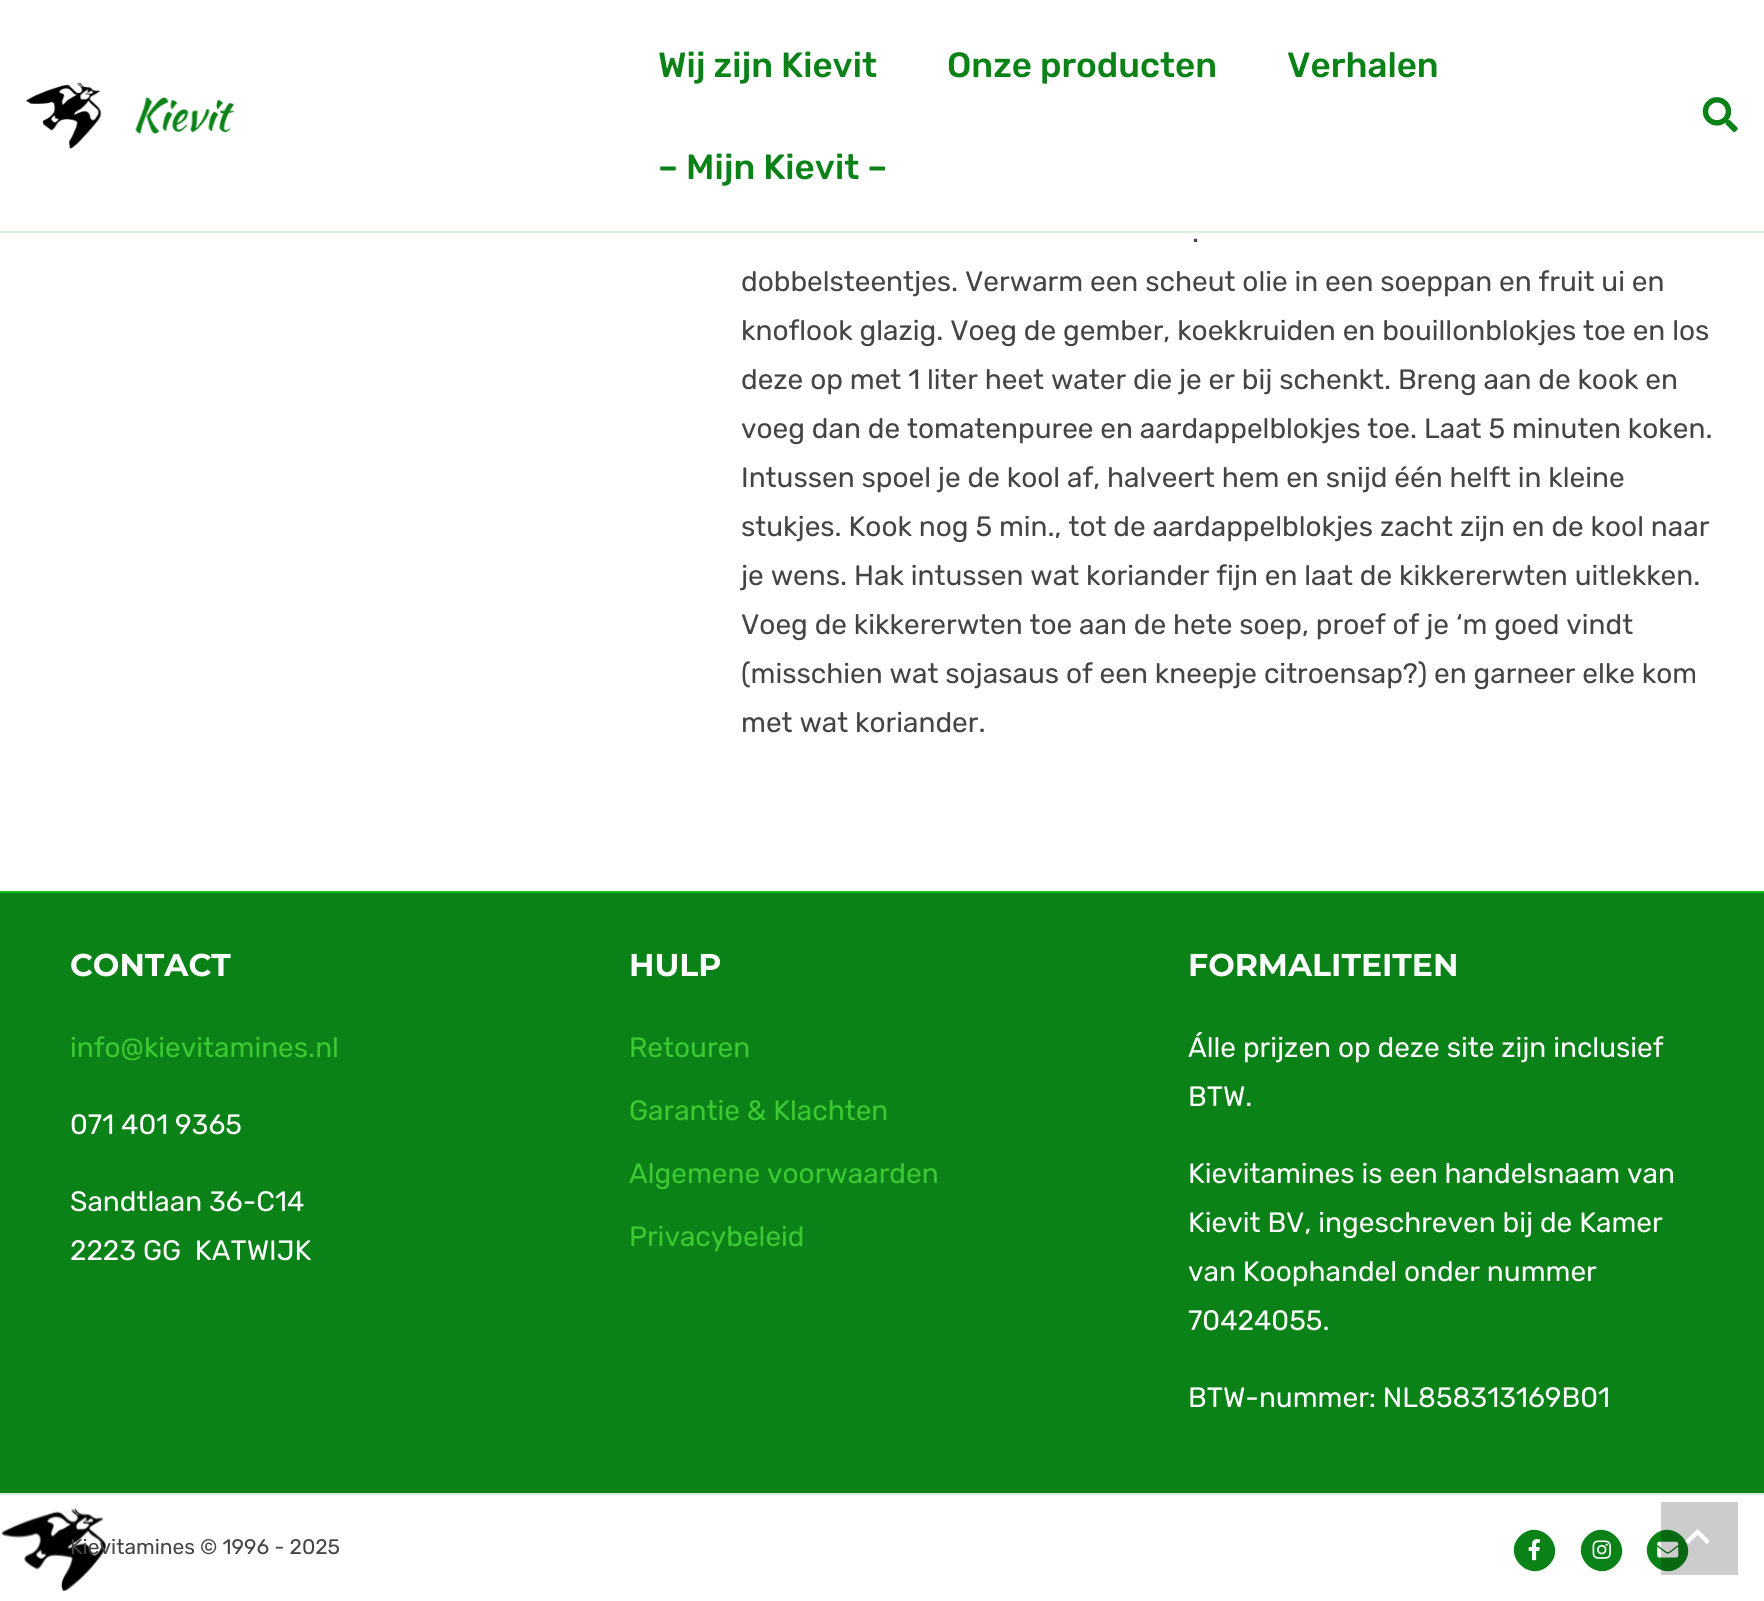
import math
import cairo



def draw_image(context, path, x, y, w, h):
    context.save()
    context.set_source_surface(cairo.ImageSurface.create_from_png(path), x, y)
    context.rectangle(x, y, w, h)
    context.fill()
    context.restore()


def draw(context):
    context.set_source_rgb(1, 1, 1)
    context.paint()
    context.set_source_rgb(223 / 255, 239 / 255, 225 / 255)
    context.rectangle(0, 231, 1764, 2)
    context.fill()
    draw_image(context, "images/1.png", 26, 82, 208, 67)
    draw_image(context, "images/2.png", 1702, 97, 36, 36)
    context.set_source_rgb(10 / 255, 130 / 255, 23 / 255)
    context.rectangle(0, 893, 1764, 600)
    context.fill()
    context.set_source_rgb(15 / 255, 192 / 255, 34 / 255)
    context.rectangle(0, 891, 1764, 2)
    context.fill()
    draw_image(context, "images/3.png", 2, 1507, 104, 84)
    context.set_source_rgb(230 / 255, 230 / 255, 230 / 255)
    context.rectangle(0, 1493, 1764, 2)
    context.fill()
    context.set_source_rgb(10 / 255, 130 / 255, 23 / 255)
    context.new_path()
    context.move_to(1520, 1536)
    context.curve_to(1539, 1517, 1568, 1546, 1549, 1565)
    context.curve_to(1530, 1584, 1501, 1555, 1520, 1536)
    context.close_path()
    context.fill()
    draw_image(context, "images/4.png", 1528, 1539, 12, 22)
    context.new_path()
    context.move_to(1587, 1536)
    context.curve_to(1606, 1517, 1635, 1546, 1616, 1565)
    context.curve_to(1597, 1584, 1568, 1555, 1587, 1536)
    context.close_path()
    context.fill()
    draw_image(context, "images/5.png", 1592, 1540, 19, 19)
    context.new_path()
    context.move_to(1653, 1536)
    context.curve_to(1672, 1517, 1701, 1546, 1682, 1565)
    context.curve_to(1663, 1584, 1634, 1555, 1653, 1536)
    context.close_path()
    context.fill()
    draw_image(context, "images/6.png", 1657, 1541, 22, 17)
    context.set_source_rgba(0, 0, 0, 0.2)
    context.rectangle(1661, 1502, 77, 73)
    context.fill()
    draw_image(context, "images/7.png", 1685, 1529, 25, 15)
    context.select_font_face("Rubik Medium")
    context.set_font_size(35)
    context.set_source_rgb(10 / 255, 130 / 255, 23 / 255)
    context.move_to(658, 77)
    context.show_text("Wij zijn Kievit")
    context.move_to(947, 77)
    context.show_text("Onze producten")
    context.move_to(1287, 77)
    context.show_text("Verhalen")
    context.move_to(658, 179)
    context.show_text("– Mijn Kievit –")
    context.select_font_face("Rubik")
    context.set_font_size(28)
    context.set_source_rgb(68 / 255, 68 / 255, 68 / 255)
    context.move_to(1192, 242)
    context.show_text(".")
    context.move_to(741, 291)
    context.show_text("dobbelsteentjes. Verwarm een scheut olie in een soeppan en fruit ui en")
    context.move_to(741, 340)
    context.show_text("knoflook glazig. Voeg de gember, koekkruiden en bouillonblokjes toe en los")
    context.move_to(741, 389)
    context.show_text("deze op met 1 liter heet water die je er bij schenkt. Breng aan de kook en")
    context.move_to(741, 438)
    context.show_text("voeg dan de tomatenpuree en aardappelblokjes toe. Laat 5 minuten koken.")
    context.move_to(741, 487)
    context.show_text("Intussen spoel je de kool af, halveert hem en snijd één helft in kleine")
    context.move_to(741, 536)
    context.show_text("stukjes. Kook nog 5 min., tot de aardappelblokjes zacht zijn en de kool naar")
    context.move_to(741, 585)
    context.show_text("je wens. Hak intussen wat koriander fijn en laat de kikkererwten uitlekken.")
    context.move_to(741, 634)
    context.show_text("Voeg de kikkererwten toe aan de hete soep, proef of je ‘m goed vindt")
    context.move_to(741, 683)
    context.show_text("(misschien wat sojasaus of een kneepje citroensap?) en garneer elke kom")
    context.move_to(741, 732)
    context.show_text("met wat koriander.")
    context.select_font_face("Montserrat", cairo.FontSlant.NORMAL, cairo.FontWeight.BOLD)
    context.set_font_size(31.5)
    context.set_source_rgb(1, 1, 1)
    context.move_to(70, 976)
    context.show_text("CONTACT")
    context.select_font_face("Rubik")
    context.set_font_size(28)
    context.set_source_rgb(60 / 255, 201 / 255, 50 / 255)
    context.move_to(70, 1057)
    context.show_text("info@kievitamines.nl")
    context.set_source_rgb(1, 1, 1)
    context.move_to(70, 1134)
    context.show_text("071 401 9365")
    context.move_to(70, 1211)
    context.show_text("Sandtlaan 36-C14")
    context.move_to(70, 1260)
    context.show_text("2223 GG  KATWIJK")
    context.select_font_face("Montserrat", cairo.FontSlant.NORMAL, cairo.FontWeight.BOLD)
    context.set_font_size(31.5)
    context.move_to(629, 976)
    context.show_text("HULP")
    context.select_font_face("Rubik")
    context.set_font_size(28)
    context.set_source_rgb(60 / 255, 201 / 255, 50 / 255)
    context.move_to(629, 1057)
    context.show_text("Retouren")
    context.move_to(629, 1120)
    context.show_text("Garantie & Klachten")
    context.move_to(629, 1183)
    context.show_text("Algemene voorwaarden")
    context.move_to(629, 1246)
    context.show_text("Privacybeleid")
    context.select_font_face("Montserrat", cairo.FontSlant.NORMAL, cairo.FontWeight.BOLD)
    context.set_font_size(31.5)
    context.set_source_rgb(1, 1, 1)
    context.move_to(1188, 976)
    context.show_text("FORMALITEITEN")
    context.select_font_face("Rubik")
    context.set_font_size(28)
    context.move_to(1188, 1057)
    context.show_text("Álle prijzen op deze site zijn inclusief")
    context.move_to(1188, 1106)
    context.show_text("BTW.")
    context.move_to(1188, 1183)
    context.show_text("Kievitamines is een handelsnaam van")
    context.move_to(1188, 1232)
    context.show_text("Kievit BV, ingeschreven bij de Kamer")
    context.move_to(1188, 1281)
    context.show_text("van Koophandel onder nummer")
    context.move_to(1188, 1330)
    context.show_text("70424055.")
    context.move_to(1188, 1407)
    context.show_text("BTW-nummer: NL858313169B01")
    context.set_font_size(21)
    context.set_source_rgb(68 / 255, 68 / 255, 68 / 255)
    context.move_to(70, 1554)
    context.show_text("Kievitamines © 1996 - 2025")


surface = cairo.ImageSurface(cairo.Format.RGB24, 1764, 1601)
context = cairo.Context(surface)
options = cairo.FontOptions()
options.set_hint_metrics(cairo.HintMetrics.OFF)
options.set_hint_style(cairo.HintStyle.NONE)
context.set_font_options(options)
context.set_miter_limit(4)
draw(context)
surface.write_to_png("out.png")
